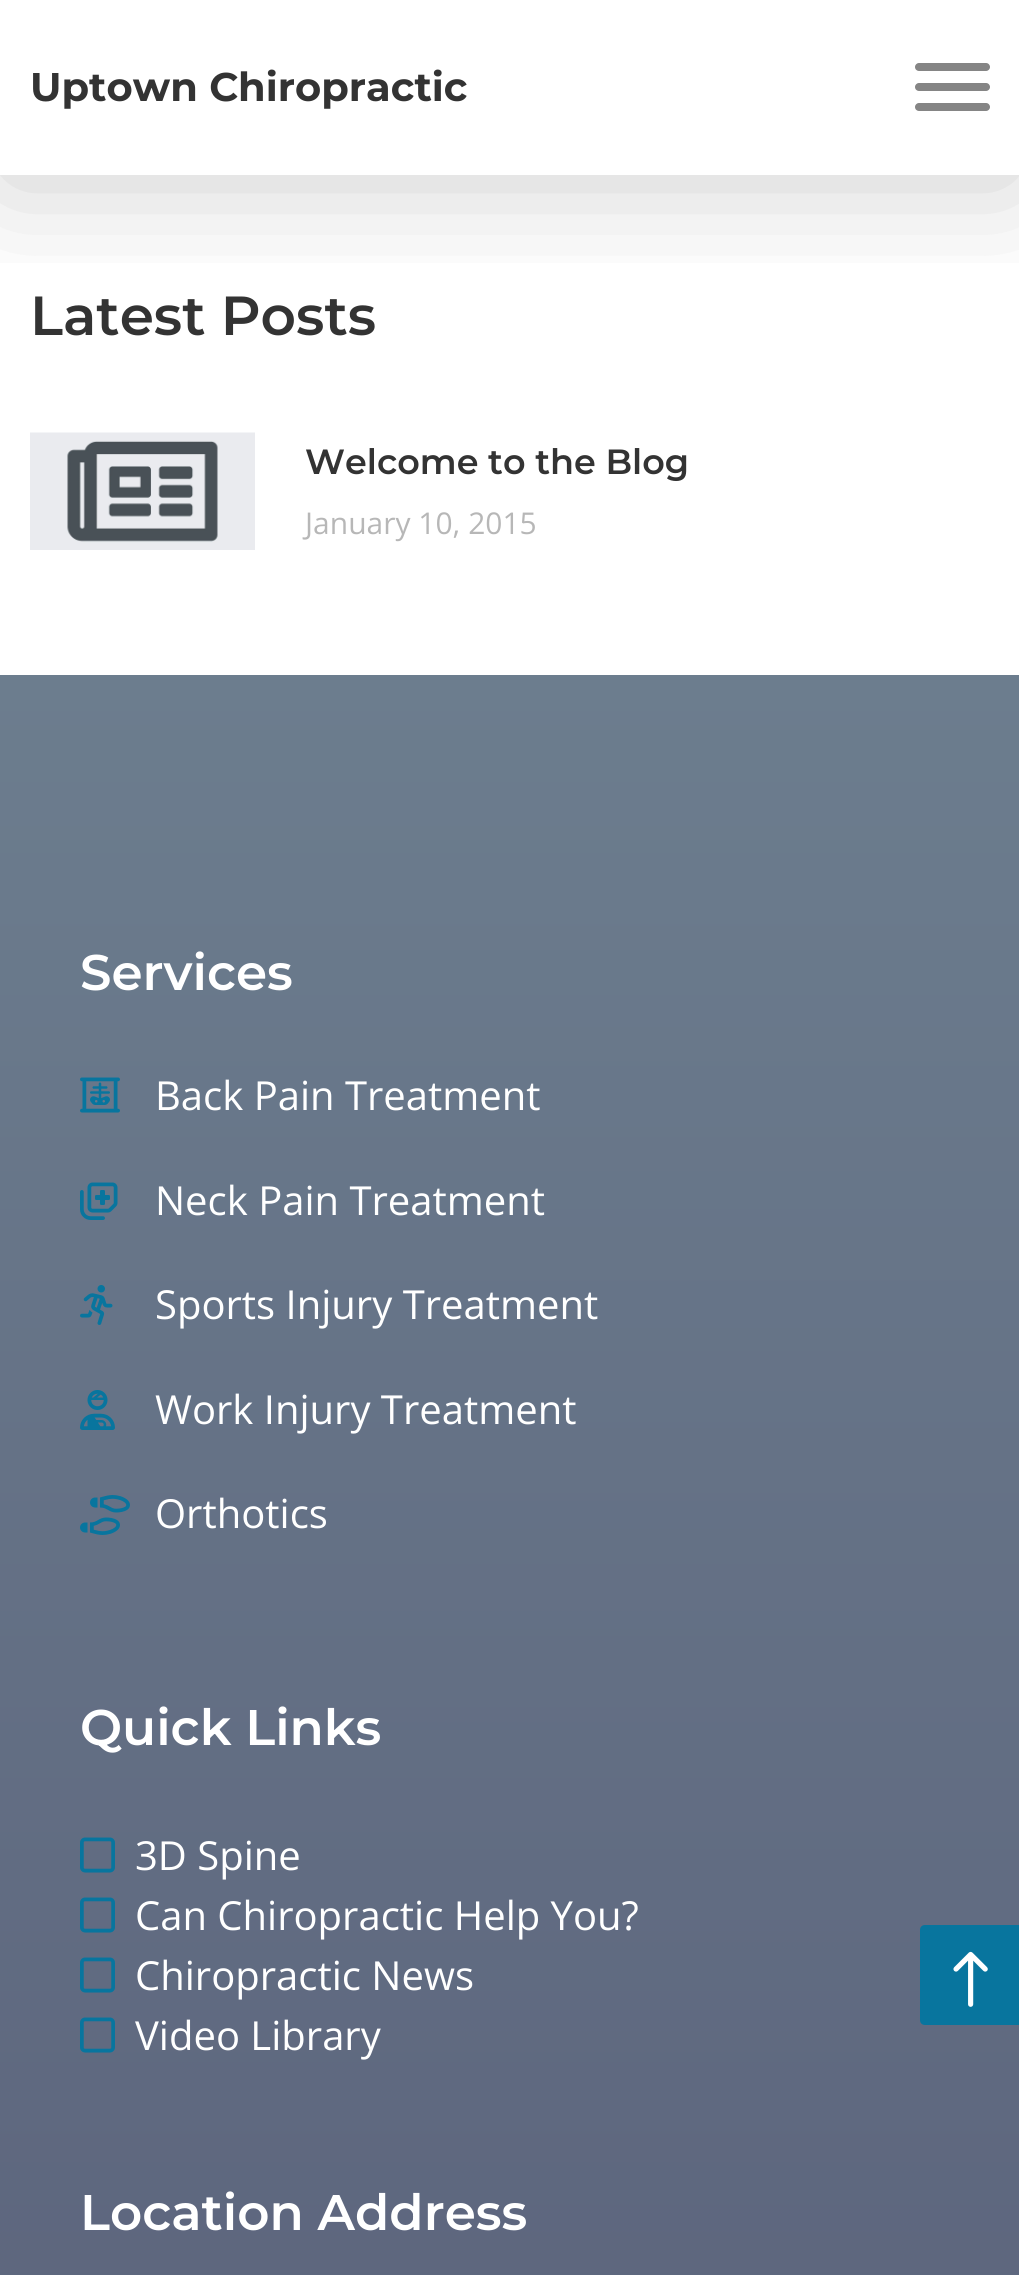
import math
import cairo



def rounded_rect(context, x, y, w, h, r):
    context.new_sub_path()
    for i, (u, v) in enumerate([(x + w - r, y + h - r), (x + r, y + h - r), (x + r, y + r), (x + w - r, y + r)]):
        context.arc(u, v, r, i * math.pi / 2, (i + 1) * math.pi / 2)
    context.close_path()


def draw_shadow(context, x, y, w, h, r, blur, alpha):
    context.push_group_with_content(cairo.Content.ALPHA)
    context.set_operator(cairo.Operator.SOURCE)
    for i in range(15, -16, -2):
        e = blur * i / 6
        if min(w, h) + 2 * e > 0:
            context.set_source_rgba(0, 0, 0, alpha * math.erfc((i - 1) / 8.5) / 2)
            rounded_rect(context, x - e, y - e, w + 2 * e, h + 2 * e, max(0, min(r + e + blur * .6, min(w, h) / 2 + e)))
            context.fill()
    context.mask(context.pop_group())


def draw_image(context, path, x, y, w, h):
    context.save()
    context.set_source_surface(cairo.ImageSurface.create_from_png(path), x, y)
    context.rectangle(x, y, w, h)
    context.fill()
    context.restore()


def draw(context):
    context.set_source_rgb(1, 1, 1)
    context.paint()
    context.save()
    context.rectangle(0, 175, 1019, 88)
    context.clip()
    context.set_source_rgb(0, 0, 0)
    draw_shadow(context, 0, 8, 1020, 175, 0, 62.5, 0.2)
    context.restore()
    context.set_source_rgb(133 / 255, 133 / 255, 133 / 255)
    rounded_rect(context, 915, 63, 75, 8, 4)
    context.fill()
    rounded_rect(context, 915, 83, 75, 8, 4)
    context.fill()
    rounded_rect(context, 915, 103, 75, 8, 4)
    context.fill()
    draw_image(context, "images/1.png", 30, 432, 225, 118)
    gradient = cairo.LinearGradient(510, 675, 510, 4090)
    gradient.add_color_stop_rgba(0, 108 / 255, 125 / 255, 142 / 255, 1)
    gradient.add_color_stop_rgba(1, 77 / 255, 77 / 255, 108 / 255, 1)
    context.set_source(gradient)
    context.rectangle(0, 675, 1019, 1600)
    context.fill()
    draw_image(context, "images/2.png", 80, 1077, 40, 36)
    draw_image(context, "images/3.png", 80, 1182, 38, 38)
    draw_image(context, "images/4.png", 80, 1285, 33, 40)
    draw_image(context, "images/5.png", 80, 1390, 35, 40)
    draw_image(context, "images/6.png", 80, 1495, 50, 40)
    draw_image(context, "images/7.png", 80, 1837, 35, 36)
    draw_image(context, "images/8.png", 80, 1897, 35, 36)
    draw_image(context, "images/9.png", 80, 1957, 35, 36)
    draw_image(context, "images/10.png", 80, 2017, 35, 36)
    context.set_source_rgb(8 / 255, 117 / 255, 158 / 255)
    context.new_path()
    context.move_to(925, 1925)
    context.line_to(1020, 1925)
    context.line_to(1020, 2025)
    context.line_to(925, 2025)
    context.curve_to(922, 2025, 920, 2023, 920, 2020)
    context.line_to(920, 1930)
    context.curve_to(920, 1927, 922, 1925, 925, 1925)
    context.close_path()
    context.fill()
    draw_image(context, "images/11.png", 953, 1951, 35, 56)
    context.select_font_face("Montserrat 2 Thin")
    context.set_font_size(40)
    context.set_source_rgb(51 / 255, 51 / 255, 51 / 255)
    context.move_to(30, 101)
    context.show_text("Uptown Chiropractic")
    context.select_font_face("Montserrat Thin")
    context.set_font_size(55)
    context.move_to(30, 335)
    context.show_text("Latest Posts")
    context.set_font_size(35)
    context.move_to(305, 474)
    context.show_text("Welcome to the Blog")
    context.select_font_face("Open Sans")
    context.set_font_size(30)
    context.set_source_rgb(183 / 255, 183 / 255, 183 / 255)
    context.move_to(305, 534)
    context.show_text("January 10, 2015")
    context.select_font_face("Montserrat Thin")
    context.set_font_size(50)
    context.set_source_rgb(1, 1, 1)
    context.move_to(80, 990)
    context.show_text("Services")
    context.select_font_face("Open Sans")
    context.set_font_size(40)
    context.move_to(155, 1110)
    context.show_text("Back Pain Treatment")
    context.move_to(155, 1215)
    context.show_text("Neck Pain Treatment")
    context.move_to(155, 1319)
    context.show_text("Sports Injury Treatment")
    context.move_to(155, 1424)
    context.show_text("Work Injury Treatment")
    context.move_to(155, 1528)
    context.show_text("Orthotics")
    context.select_font_face("Montserrat Thin")
    context.set_font_size(50)
    context.move_to(80, 1745)
    context.show_text("Quick Links")
    context.select_font_face("Open Sans")
    context.set_font_size(40)
    context.move_to(135, 1870)
    context.show_text("3D Spine")
    context.move_to(135, 1930)
    context.show_text("Can Chiropractic Help You?")
    context.move_to(135, 1990)
    context.show_text("Chiropractic News")
    context.move_to(135, 2050)
    context.show_text("Video Library")
    context.select_font_face("Montserrat Thin")
    context.set_font_size(50)
    context.move_to(80, 2230)
    context.show_text("Location Address")


surface = cairo.ImageSurface(cairo.Format.RGB24, 1019, 2275)
context = cairo.Context(surface)
options = cairo.FontOptions()
options.set_hint_metrics(cairo.HintMetrics.OFF)
options.set_hint_style(cairo.HintStyle.NONE)
context.set_font_options(options)
context.set_miter_limit(4)
draw(context)
surface.write_to_png("out.png")
